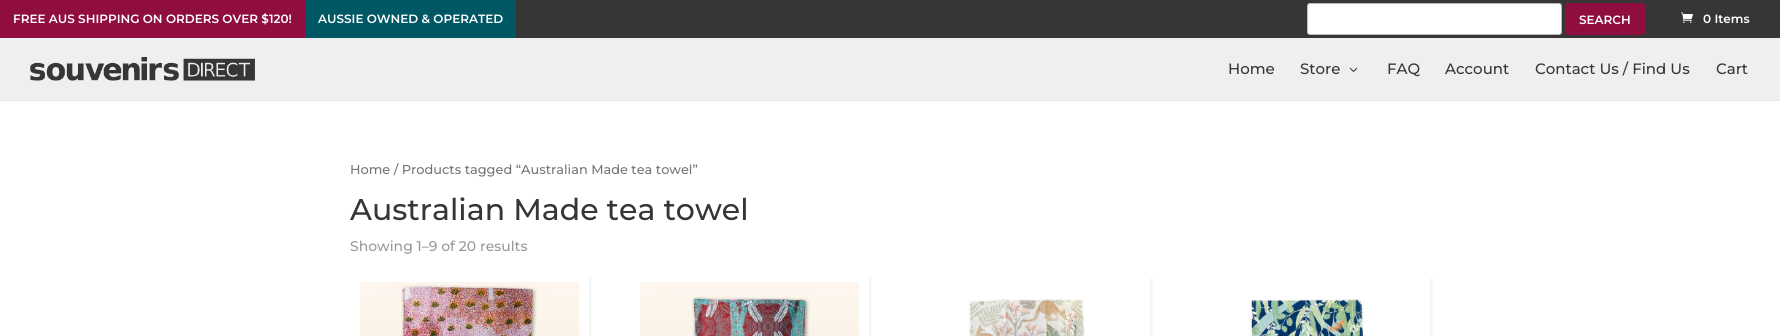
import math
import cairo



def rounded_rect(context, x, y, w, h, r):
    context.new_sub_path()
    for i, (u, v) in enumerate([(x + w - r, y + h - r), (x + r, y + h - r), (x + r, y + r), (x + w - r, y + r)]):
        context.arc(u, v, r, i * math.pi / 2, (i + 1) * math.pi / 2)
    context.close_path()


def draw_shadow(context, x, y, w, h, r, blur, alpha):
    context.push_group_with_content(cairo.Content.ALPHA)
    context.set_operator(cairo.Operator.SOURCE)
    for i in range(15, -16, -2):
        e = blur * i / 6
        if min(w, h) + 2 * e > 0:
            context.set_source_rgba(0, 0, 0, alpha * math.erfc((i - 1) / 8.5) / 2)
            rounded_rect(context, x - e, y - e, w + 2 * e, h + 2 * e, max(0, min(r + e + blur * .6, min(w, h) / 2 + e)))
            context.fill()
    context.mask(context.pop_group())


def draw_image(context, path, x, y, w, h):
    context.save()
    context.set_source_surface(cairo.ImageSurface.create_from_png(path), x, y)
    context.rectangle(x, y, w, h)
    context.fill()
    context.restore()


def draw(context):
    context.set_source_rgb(1, 1, 1)
    context.paint()
    context.set_source_rgb(54 / 255, 54 / 255, 54 / 255)
    context.rectangle(516, 0, 1264, 38)
    context.fill()
    context.set_source_rgb(144 / 255, 13 / 255, 63 / 255)
    context.rectangle(0, 0, 305, 38)
    context.fill()
    context.set_source_rgb(0, 88 / 255, 100 / 255)
    context.rectangle(305, 0, 211, 38)
    context.fill()
    context.set_source_rgb(1, 1, 1)
    rounded_rect(context, 1307.5, 3.5, 254, 31, 2.5)
    context.fill_preserve()
    context.set_source_rgb(187 / 255, 187 / 255, 187 / 255)
    context.set_line_width(1)
    context.stroke()
    context.set_source_rgb(144 / 255, 13 / 255, 63 / 255)
    rounded_rect(context, 1565.5, 3.5, 79, 31, 2.5)
    context.fill_preserve()
    context.stroke()
    draw_image(context, "images/1.png", 1681, 12, 12, 11)
    context.set_source_rgb(230 / 255, 230 / 255, 230 / 255)
    context.rectangle(0, 100, 1780, 1)
    context.fill()
    context.set_source_rgb(239 / 255, 239 / 255, 239 / 255)
    context.rectangle(0, 38, 1780, 62)
    context.fill()
    draw_image(context, "images/2.png", 30, 57, 225, 24)
    draw_image(context, "images/3.png", 1349, 67, 9, 5)
    context.save()
    context.rectangle(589, 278, 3, 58)
    context.clip()
    context.set_source_rgb(0, 0, 0)
    draw_shadow(context, 356, 278, 235, 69, 0, 3.5, 0.06)
    context.restore()
    draw_image(context, "images/4.png", 360, 282, 219, 54)
    context.save()
    context.rectangle(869, 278, 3, 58)
    context.clip()
    context.set_source_rgb(0, 0, 0)
    draw_shadow(context, 636, 278, 235, 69, 0, 3.5, 0.06)
    context.restore()
    draw_image(context, "images/5.png", 640, 282, 219, 54)
    context.save()
    context.rectangle(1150, 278, 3, 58)
    context.clip()
    context.set_source_rgb(0, 0, 0)
    draw_shadow(context, 917, 278, 235, 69, 0, 3.5, 0.06)
    context.restore()
    draw_image(context, "images/6.png", 968, 299, 117, 37)
    context.save()
    context.rectangle(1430, 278, 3, 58)
    context.clip()
    context.set_source_rgb(0, 0, 0)
    draw_shadow(context, 1197, 278, 235, 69, 0, 3.5, 0.06)
    context.restore()
    draw_image(context, "images/7.png", 1248, 299, 117, 37)
    context.select_font_face("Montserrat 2 Thin")
    context.set_font_size(12)
    context.set_source_rgb(1, 1, 1)
    context.move_to(13, 23)
    context.show_text("FREE AUS SHIPPING ON ORDERS OVER $120!")
    context.move_to(318, 23)
    context.show_text("AUSSIE OWNED & OPERATED")
    context.move_to(1579, 24)
    context.show_text("SEARCH")
    context.move_to(1703, 23)
    context.show_text("0 Items")
    context.select_font_face("Montserrat Thin")
    context.set_font_size(15)
    context.set_source_rgb(54 / 255, 54 / 255, 54 / 255)
    context.move_to(1228, 74)
    context.show_text("Home")
    context.move_to(1300, 74)
    context.show_text("Store")
    context.move_to(1387, 74)
    context.show_text("FAQ")
    context.move_to(1445, 74)
    context.show_text("Account")
    context.move_to(1535, 74)
    context.show_text("Contact Us / Find Us")
    context.move_to(1716, 74)
    context.show_text("Cart")
    context.set_font_size(12.9)
    context.set_source_rgb(118 / 255, 118 / 255, 118 / 255)
    context.move_to(350, 174)
    context.show_text("Home / Products tagged “Australian Made tea towel”")
    context.set_font_size(30)
    context.set_source_rgb(54 / 255, 54 / 255, 54 / 255)
    context.move_to(350, 220)
    context.show_text("Australian Made tea towel")
    context.set_font_size(14)
    context.set_source_rgb(153 / 255, 153 / 255, 153 / 255)
    context.move_to(350, 251)
    context.show_text("Showing 1–9 of 20 results")


surface = cairo.ImageSurface(cairo.Format.RGB24, 1780, 336)
context = cairo.Context(surface)
options = cairo.FontOptions()
options.set_hint_metrics(cairo.HintMetrics.OFF)
options.set_hint_style(cairo.HintStyle.NONE)
context.set_font_options(options)
context.set_miter_limit(4)
draw(context)
surface.write_to_png("out.png")
